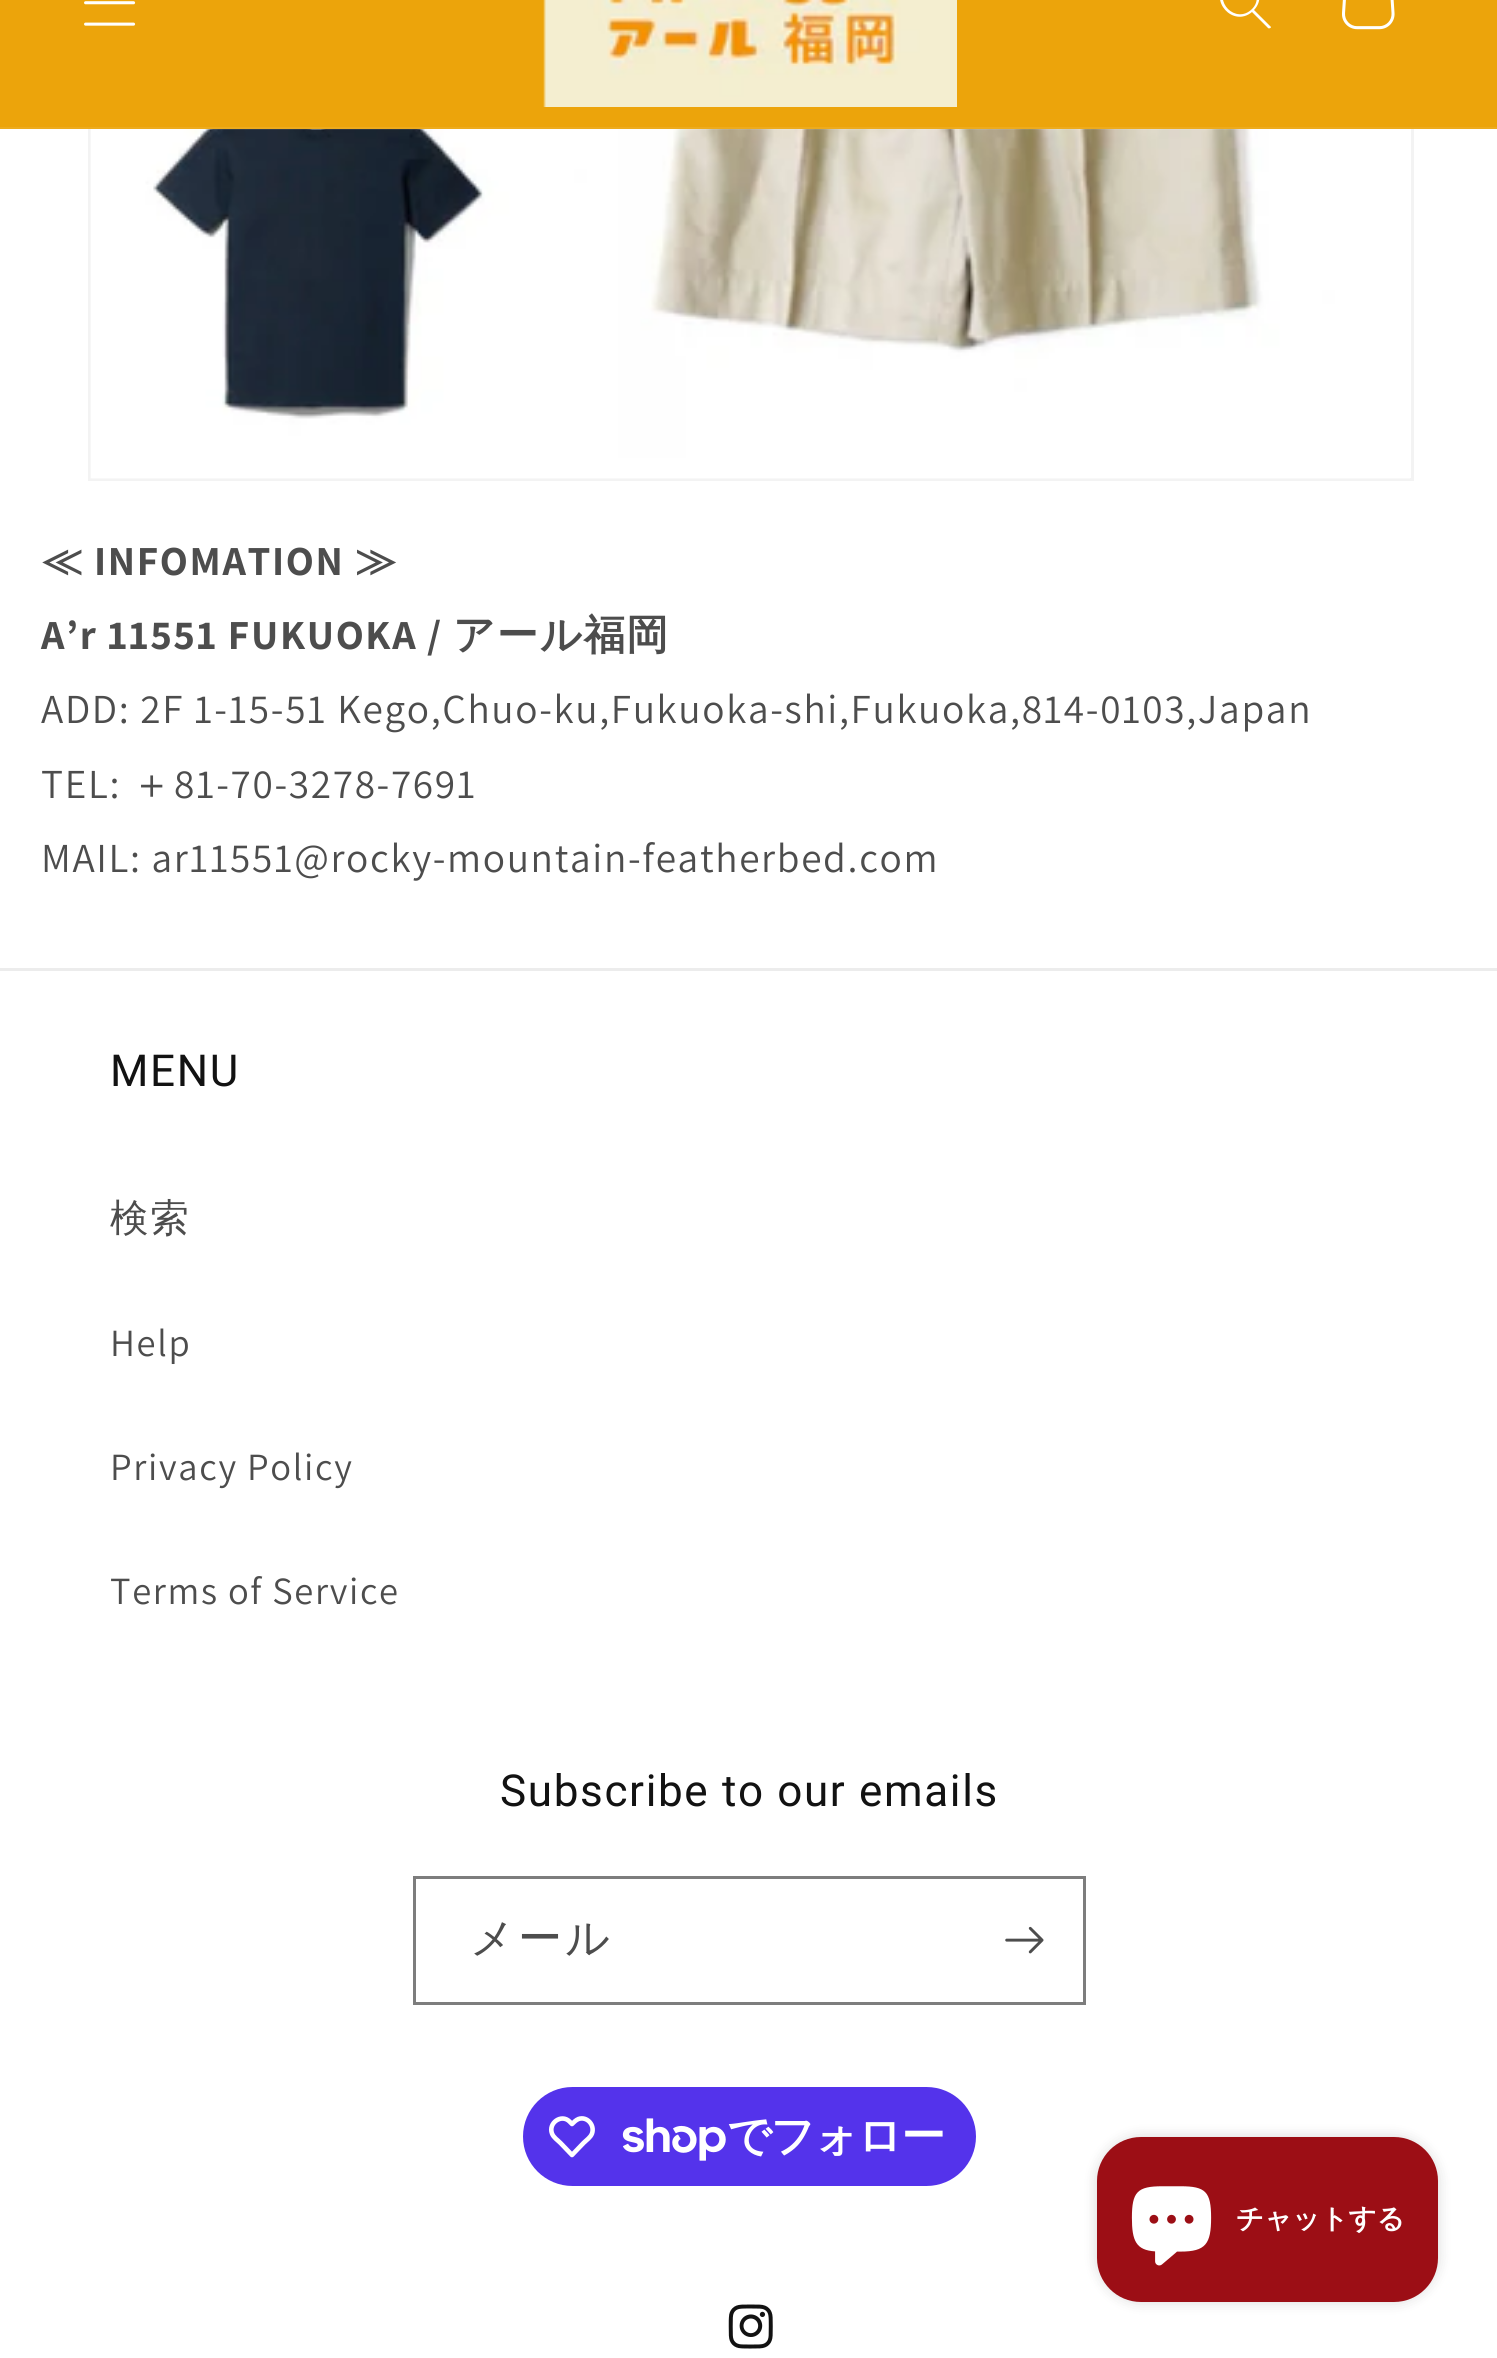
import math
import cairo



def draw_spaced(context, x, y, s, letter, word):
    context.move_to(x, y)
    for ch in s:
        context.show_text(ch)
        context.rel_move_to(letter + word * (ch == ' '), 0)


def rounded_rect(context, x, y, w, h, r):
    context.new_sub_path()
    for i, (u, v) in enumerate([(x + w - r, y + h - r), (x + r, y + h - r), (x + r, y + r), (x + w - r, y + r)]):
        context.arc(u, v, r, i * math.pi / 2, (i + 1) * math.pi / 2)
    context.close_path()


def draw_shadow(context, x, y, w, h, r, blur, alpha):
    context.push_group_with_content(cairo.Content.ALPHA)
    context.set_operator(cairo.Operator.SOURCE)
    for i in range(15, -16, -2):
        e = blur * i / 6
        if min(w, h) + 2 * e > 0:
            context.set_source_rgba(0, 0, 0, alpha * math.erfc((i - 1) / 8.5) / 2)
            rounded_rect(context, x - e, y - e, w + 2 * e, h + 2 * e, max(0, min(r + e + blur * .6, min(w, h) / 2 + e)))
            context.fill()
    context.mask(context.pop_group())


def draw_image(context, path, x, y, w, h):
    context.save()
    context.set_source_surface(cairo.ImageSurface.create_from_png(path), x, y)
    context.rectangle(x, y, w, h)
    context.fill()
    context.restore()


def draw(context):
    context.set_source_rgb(1, 1, 1)
    context.paint()
    context.rectangle(89.5, -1.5, 1323, 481)
    context.set_source_rgb(243 / 255, 243 / 255, 243 / 255)
    context.set_line_width(3)
    context.stroke()
    context.set_source_rgb(236 / 255, 164 / 255, 11 / 255)
    context.rectangle(0, 0, 1497, 129)
    context.fill()
    draw_image(context, "images/4.png", 90, 129, 1320, 350)
    context.set_source_rgba(1, 1, 1, 0.08)
    context.rectangle(0, 127, 1497, 3)
    context.fill()
    draw_image(context, "images/1.png", 84, 1, 52, 25)
    draw_image(context, "images/2.png", 543, 0, 414, 107)
    context.set_source_rgb(1, 1, 1)
    context.set_fill_rule(cairo.FillRule.EVEN_ODD)
    context.new_path()
    context.move_to(1252, 9)
    context.curve_to(1236, 25, 1212, 1, 1228, -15)
    context.curve_to(1243, -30, 1267, -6, 1252, 9)
    context.move_to(1252, 12)
    context.curve_to(1233, 28, 1208, 0, 1226, -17)
    context.curve_to(1244, -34, 1271, -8, 1254, 10)
    context.line_to(1271, 27)
    context.curve_to(1271, 28, 1269, 29, 1268, 28)
    context.close_path()
    context.fill()
    draw_image(context, "images/3.png", 1342, 0, 53, 30)
    context.set_source_rgb(236 / 255, 236 / 255, 236 / 255)
    context.rectangle(0, 968, 1497, 3)
    context.fill()
    context.rectangle(414.5, 1877.5, 670, 126)
    context.set_source_rgb(125 / 255, 125 / 255, 125 / 255)
    context.stroke()
    draw_image(context, "images/5.png", 1005, 1926, 39, 28)
    context.set_source_rgb(84 / 255, 51 / 255, 235 / 255)
    rounded_rect(context, 523, 2087, 453, 99, 49.5)
    context.fill()
    context.new_path()
    context.move_to(569.5, 2121.5)
    context.line_to(572, 2124)
    context.curve_to(574, 2122, 576, 2120, 578.5, 2119)
    context.curve_to(587, 2116, 595, 2125, 592, 2133.5)
    context.curve_to(590.5, 2137.5, 586.5, 2140, 583.5, 2143)
    context.line_to(572, 2155)
    context.line_to(560.5, 2143)
    context.curve_to(557.5, 2140, 553.5, 2137.5, 552, 2133.5)
    context.curve_to(548, 2123, 561.5, 2113.5, 569.5, 2121.5)
    context.close_path()
    context.set_source_rgb(1, 1, 1)
    context.set_line_width(4.6)
    context.set_line_join(cairo.LineJoin.ROUND)
    context.stroke()
    draw_image(context, "images/6.png", 622, 2118, 104, 43)
    draw_image(context, "images/7.png", 728, 2304, 45, 45)
    context.set_source_rgb(0, 0, 0)
    draw_shadow(context, 1097, 2137, 341, 165, 44, 7, 0.15)
    context.set_source_rgb(156 / 255, 14 / 255, 21 / 255)
    rounded_rect(context, 1097, 2137, 341, 165, 44)
    context.fill()
    draw_image(context, "images/8.png", 1131, 2186, 81, 80)
    context.select_font_face("WenQuanYi Zen Hei", cairo.FontSlant.NORMAL, cairo.FontWeight.BOLD)
    context.set_font_size(41.25)
    context.set_source_rgb(77 / 255, 77 / 255, 77 / 255)
    draw_spaced(context, 41, 575, "≪", 1.65, 0)
    context.select_font_face("Assistant", cairo.FontSlant.NORMAL, cairo.FontWeight.BOLD)
    draw_spaced(context, 94, 575, "INFOMATION", 1.65, 0)
    context.select_font_face("WenQuanYi Zen Hei", cairo.FontSlant.NORMAL, cairo.FontWeight.BOLD)
    draw_spaced(context, 355, 575, "≫", 1.65, 0)
    context.select_font_face("Assistant", cairo.FontSlant.NORMAL, cairo.FontWeight.BOLD)
    draw_spaced(context, 41, 649, "A’r 11551 FUKUOKA /", 1.65, 0)
    context.select_font_face("WenQuanYi Zen Hei", cairo.FontSlant.NORMAL, cairo.FontWeight.BOLD)
    draw_spaced(context, 453, 649, "アール福岡", 1.65, 0)
    context.select_font_face("Assistant")
    draw_spaced(context, 41, 723, "ADD: 2F 1-15-51 Kego,Chuo-ku,Fukuoka-shi,Fukuoka,814-0103,Japan", 1.65, 0)
    draw_spaced(context, 41, 798, "TEL:", 1.65, 0)
    context.select_font_face("WenQuanYi Zen Hei Medium")
    draw_spaced(context, 131, 798, "＋", 1.65, 0)
    context.select_font_face("Assistant")
    draw_spaced(context, 174, 798, "81-70-3278-7691", 1.65, 0)
    draw_spaced(context, 41, 872, "MAIL: ar11551@rocky-mountain-featherbed.com", 1.65, 0)
    context.select_font_face("Roboto")
    context.set_font_size(44)
    context.set_source_rgb(18 / 255, 18 / 255, 18 / 255)
    draw_spaced(context, 110, 1086, "MENU", 1.65, 0)
    context.select_font_face("WenQuanYi Zen Hei Medium")
    context.set_font_size(38.5)
    context.set_source_rgb(77 / 255, 77 / 255, 77 / 255)
    draw_spaced(context, 110, 1231, "検索", 1.65, 0)
    context.select_font_face("Assistant")
    draw_spaced(context, 110, 1356, "Help", 1.65, 0)
    draw_spaced(context, 110, 1480, "Privacy Policy", 1.65, 0)
    draw_spaced(context, 110, 1604, "Terms of Service", 1.65, 0)
    context.select_font_face("Roboto")
    context.set_font_size(44)
    context.set_source_rgb(18 / 255, 18 / 255, 18 / 255)
    draw_spaced(context, 500, 1806, "Subscribe to our emails", 1.65, 0)
    context.select_font_face("WenQuanYi Zen Hei Medium")
    context.set_source_rgb(77 / 255, 77 / 255, 77 / 255)
    draw_spaced(context, 470, 1953, "メール", 3, 0)
    context.select_font_face("WenQuanYi Zen Hei", cairo.FontSlant.NORMAL, cairo.FontWeight.BOLD)
    context.set_source_rgb(1, 1, 1)
    draw_spaced(context, 727, 2151, "でフォロー", -1.5, 0)
    context.set_font_size(27.5)
    context.move_to(1236, 2228)
    context.show_text("チャットする")


surface = cairo.ImageSurface(cairo.Format.RGB24, 1497, 2358)
context = cairo.Context(surface)
options = cairo.FontOptions()
options.set_hint_metrics(cairo.HintMetrics.OFF)
options.set_hint_style(cairo.HintStyle.NONE)
context.set_font_options(options)
context.set_miter_limit(4)
draw(context)
surface.write_to_png("out.png")
